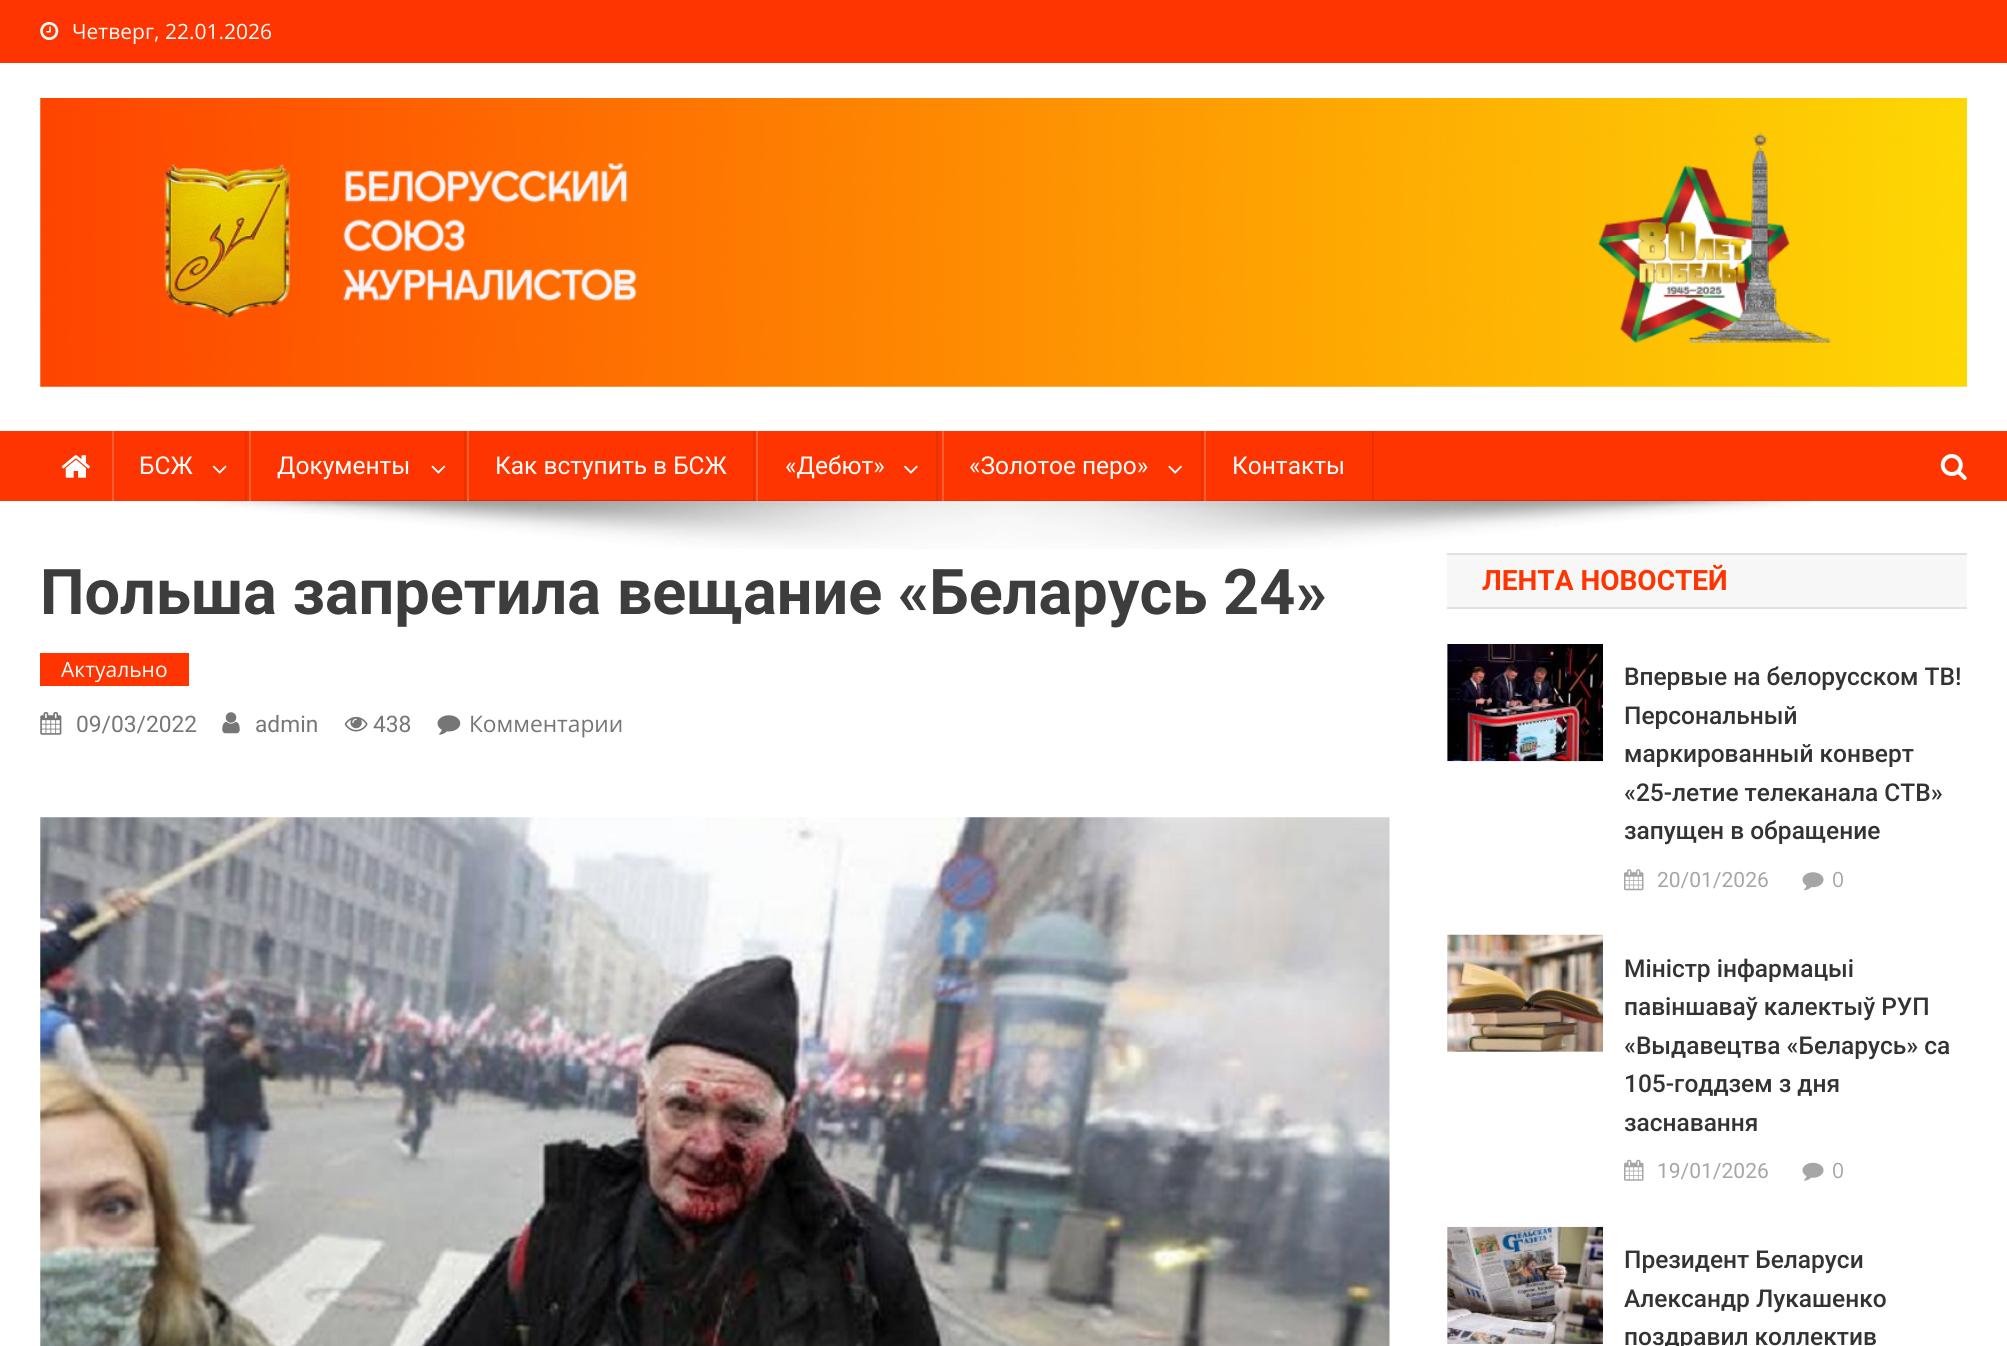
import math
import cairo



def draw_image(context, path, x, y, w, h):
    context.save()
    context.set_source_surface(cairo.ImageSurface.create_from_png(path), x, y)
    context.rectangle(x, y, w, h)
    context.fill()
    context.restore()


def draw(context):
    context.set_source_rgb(1, 1, 1)
    context.paint()
    context.set_source_rgb(254 / 255, 53 / 255, 0)
    context.rectangle(0, 0, 2007, 63)
    context.fill()
    draw_image(context, "images/1.png", 40, 22, 19, 18)
    draw_image(context, "images/2.png", 40, 98, 1927, 289)
    context.rectangle(0, 431, 2007, 70)
    context.fill()
    draw_image(context, "images/3.png", 61, 455, 29, 23)
    draw_image(context, "images/9.png", 195, 500, 1617, 49)
    context.set_source_rgba(0, 0, 0, 0.08)
    context.rectangle(245, 431, 2, 70)
    context.fill()
    context.set_source_rgb(254 / 255, 93 / 255, 51 / 255)
    context.rectangle(112, 431, 2, 70)
    context.fill()
    draw_image(context, "images/4.png", 212, 465, 15, 9)
    context.set_source_rgba(0, 0, 0, 0.08)
    context.rectangle(464, 431, 2, 70)
    context.fill()
    context.set_source_rgba(1, 1, 1, 0.2)
    context.rectangle(249, 431, 2, 70)
    context.fill()
    draw_image(context, "images/5.png", 431, 465, 15, 9)
    context.set_source_rgba(0, 0, 0, 0.08)
    context.rectangle(753, 431, 2, 70)
    context.fill()
    context.set_source_rgba(1, 1, 1, 0.2)
    context.rectangle(467, 431, 2, 70)
    context.fill()
    context.set_source_rgba(0, 0, 0, 0.08)
    context.rectangle(936, 431, 2, 70)
    context.fill()
    context.set_source_rgba(1, 1, 1, 0.2)
    context.rectangle(756, 431, 2, 70)
    context.fill()
    draw_image(context, "images/6.png", 904, 465, 14, 9)
    context.set_source_rgba(0, 0, 0, 0.08)
    context.rectangle(1201, 431, 2, 70)
    context.fill()
    context.set_source_rgba(1, 1, 1, 0.2)
    context.rectangle(942, 431, 2, 70)
    context.fill()
    draw_image(context, "images/7.png", 1168, 465, 14, 9)
    context.set_source_rgba(0, 0, 0, 0.08)
    context.rectangle(1372, 431, 2, 70)
    context.fill()
    context.set_source_rgba(1, 1, 1, 0.2)
    context.rectangle(1204, 431, 2, 70)
    context.fill()
    draw_image(context, "images/8.png", 1940, 454, 27, 26)
    context.set_source_rgb(254 / 255, 53 / 255, 0)
    context.rectangle(40, 653, 149, 33)
    context.fill()
    draw_image(context, "images/10.png", 40, 712, 22, 23)
    draw_image(context, "images/11.png", 222, 712, 18, 22)
    draw_image(context, "images/12.png", 344, 716, 24, 16)
    draw_image(context, "images/13.png", 437, 715, 24, 20)
    draw_image(context, "images/14.png", 40, 817, 1350, 529)
    context.set_source_rgb(247 / 255, 247 / 255, 247 / 255)
    context.rectangle(1447, 555, 520, 52)
    context.fill()
    context.set_source_rgb(225 / 255, 225 / 255, 225 / 255)
    context.rectangle(1447, 553, 520, 2)
    context.fill()
    context.rectangle(1447, 607, 520, 2)
    context.fill()
    context.set_source_rgb(229 / 255, 229 / 255, 229 / 255)
    context.rectangle(1447, 644, 1, 117)
    context.fill()
    draw_image(context, "images/15.png", 1447, 644, 156, 118)
    draw_image(context, "images/16.png", 1624, 869, 20, 22)
    draw_image(context, "images/17.png", 1802, 872, 22, 19)
    context.rectangle(1447, 935, 156, 117)
    context.fill()
    draw_image(context, "images/18.png", 1447, 934, 156, 118)
    draw_image(context, "images/19.png", 1624, 1159, 20, 22)
    draw_image(context, "images/20.png", 1802, 1162, 22, 19)
    context.rectangle(1447, 1227, 1, 117)
    context.fill()
    draw_image(context, "images/21.png", 1447, 1226, 156, 118)
    context.select_font_face("Open Sans")
    context.set_font_size(21)
    context.set_source_rgb(1, 1, 1)
    context.move_to(72, 39)
    context.show_text("Четверг, 22.01.2026")
    context.select_font_face("Roboto")
    context.set_font_size(24.5)
    context.move_to(139, 474)
    context.show_text("БСЖ")
    context.move_to(277, 474)
    context.show_text("Документы")
    context.move_to(495, 474)
    context.show_text("Как вступить в БСЖ")
    context.move_to(785, 474)
    context.show_text("«Дебют»")
    context.move_to(969, 474)
    context.show_text("«Золотое перо»")
    context.move_to(1232, 474)
    context.show_text("Контакты")
    context.select_font_face("Roboto", cairo.FontSlant.NORMAL, cairo.FontWeight.BOLD)
    context.set_font_size(63)
    context.set_source_rgb(61 / 255, 61 / 255, 61 / 255)
    context.move_to(40, 614)
    context.show_text("Польша запретила вещание «Беларусь 24»")
    context.select_font_face("Open Sans")
    context.set_font_size(21)
    context.set_source_rgb(1, 1, 1)
    context.move_to(61, 677)
    context.show_text("Актуально")
    context.select_font_face("Roboto")
    context.set_font_size(22.75)
    context.set_source_rgb(118 / 255, 118 / 255, 118 / 255)
    context.move_to(76, 732)
    context.show_text("09/03/2022")
    context.move_to(255, 732)
    context.show_text("admin")
    context.move_to(373, 732)
    context.show_text("438")
    context.select_font_face("Open Sans")
    context.move_to(469, 732)
    context.show_text("Комментарии")
    context.select_font_face("Roboto", cairo.FontSlant.NORMAL, cairo.FontWeight.BOLD)
    context.set_font_size(28)
    context.set_source_rgb(254 / 255, 53 / 255, 0)
    context.move_to(1482, 590)
    context.show_text("ЛЕНТА НОВОСТЕЙ")
    context.select_font_face("Roboto Medium")
    context.set_font_size(24.5)
    context.set_source_rgb(51 / 255, 51 / 255, 51 / 255)
    context.move_to(1624, 685)
    context.show_text("Впервые на белорусском ТВ!")
    context.move_to(1624, 724)
    context.show_text("Персональный")
    context.move_to(1624, 762)
    context.show_text("маркированный конверт")
    context.move_to(1624, 801)
    context.show_text("«25-летие телеканала СТВ»")
    context.move_to(1624, 839)
    context.show_text("запущен в обращение")
    context.select_font_face("Roboto")
    context.set_font_size(21)
    context.set_source_rgb(166 / 255, 166 / 255, 166 / 255)
    context.move_to(1657, 887)
    context.show_text("20/01/2026")
    context.select_font_face("Open Sans")
    context.move_to(1832, 887)
    context.show_text("0")
    context.select_font_face("Roboto Medium")
    context.set_font_size(24.5)
    context.set_source_rgb(51 / 255, 51 / 255, 51 / 255)
    context.move_to(1624, 977)
    context.show_text("Міністр інфармацыі")
    context.move_to(1624, 1015)
    context.show_text("павіншаваў калектыў РУП")
    context.move_to(1624, 1054)
    context.show_text("«Выдавецтва «Беларусь» са")
    context.move_to(1624, 1092)
    context.show_text("105-годдзем з дня")
    context.move_to(1624, 1131)
    context.show_text("заснавання")
    context.select_font_face("Roboto")
    context.set_font_size(21)
    context.set_source_rgb(166 / 255, 166 / 255, 166 / 255)
    context.move_to(1657, 1178)
    context.show_text("19/01/2026")
    context.select_font_face("Open Sans")
    context.move_to(1832, 1178)
    context.show_text("0")
    context.select_font_face("Roboto Medium")
    context.set_font_size(24.5)
    context.set_source_rgb(51 / 255, 51 / 255, 51 / 255)
    context.move_to(1624, 1268)
    context.show_text("Президент Беларуси")
    context.move_to(1624, 1307)
    context.show_text("Александр Лукашенко")
    context.move_to(1624, 1345)
    context.show_text("поздравил коллектив")


surface = cairo.ImageSurface(cairo.Format.RGB24, 2007, 1346)
context = cairo.Context(surface)
options = cairo.FontOptions()
options.set_hint_metrics(cairo.HintMetrics.OFF)
options.set_hint_style(cairo.HintStyle.NONE)
context.set_font_options(options)
context.set_miter_limit(4)
draw(context)
surface.write_to_png("out.png")
